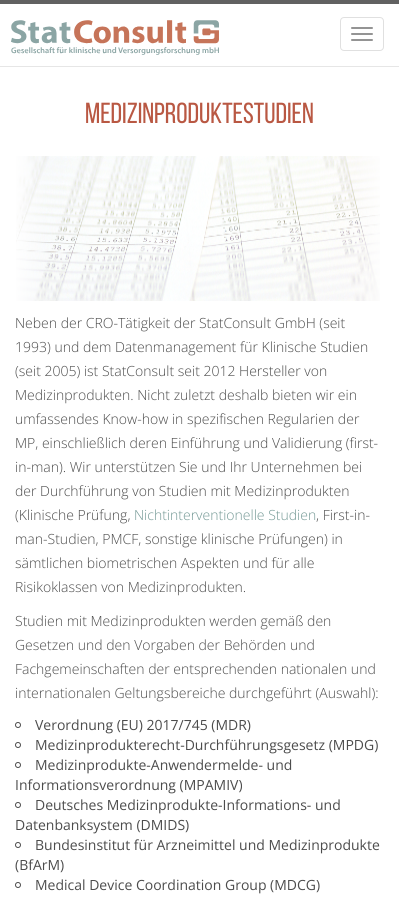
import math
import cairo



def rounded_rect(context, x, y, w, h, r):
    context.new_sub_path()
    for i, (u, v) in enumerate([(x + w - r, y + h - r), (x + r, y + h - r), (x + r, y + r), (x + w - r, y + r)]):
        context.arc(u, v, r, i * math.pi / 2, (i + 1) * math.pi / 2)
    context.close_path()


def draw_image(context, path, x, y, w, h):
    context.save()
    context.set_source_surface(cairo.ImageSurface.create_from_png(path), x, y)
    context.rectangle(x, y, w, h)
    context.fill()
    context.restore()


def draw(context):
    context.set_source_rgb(1, 1, 1)
    context.paint()
    context.set_source_rgb(97 / 255, 97 / 255, 97 / 255)
    context.rectangle(0, 0, 399, 4)
    context.fill()
    context.set_source_rgb(230 / 255, 230 / 255, 230 / 255)
    context.rectangle(0, 66, 399, 1)
    context.fill()
    draw_image(context, "images/1.png", 11, 20, 208, 35)
    rounded_rect(context, 340.5, 17.5, 43, 33, 3.5)
    context.set_source_rgb(224 / 255, 224 / 255, 224 / 255)
    context.set_line_width(1)
    context.stroke()
    context.set_source_rgb(148 / 255, 148 / 255, 148 / 255)
    rounded_rect(context, 351, 27, 22, 2, 1)
    context.fill()
    rounded_rect(context, 351, 33, 22, 2, 1)
    context.fill()
    rounded_rect(context, 351, 39, 22, 2, 1)
    context.fill()
    draw_image(context, "images/2.png", 16, 156, 364, 145)
    context.arc(18, 725, 2.5, 0, 2 * math.pi)
    context.set_source_rgb(76 / 255, 76 / 255, 76 / 255)
    context.stroke()
    context.arc(18, 745, 2.5, 0, 2 * math.pi)
    context.stroke()
    context.arc(18, 765, 2.5, 0, 2 * math.pi)
    context.stroke()
    context.arc(18, 805, 2.5, 0, 2 * math.pi)
    context.stroke()
    context.arc(18, 845, 2.5, 0, 2 * math.pi)
    context.stroke()
    context.arc(18, 885, 2.5, 0, 2 * math.pi)
    context.stroke()
    context.select_font_face("Bebas Neue")
    context.set_font_size(29)
    context.set_source_rgb(185 / 255, 88 / 255, 67 / 255)
    context.move_to(85, 123)
    context.show_text("Medizinproduktestudien")
    context.select_font_face("Open Sans Light")
    context.set_font_size(14)
    context.set_source_rgb(76 / 255, 76 / 255, 76 / 255)
    context.move_to(15, 328)
    context.show_text("Neben der CRO-Tätigkeit der StatConsult GmbH (seit")
    context.move_to(15, 352)
    context.show_text("1993) und dem Datenmanagement für Klinische Studien")
    context.move_to(15, 376)
    context.show_text("(seit 2005) ist StatConsult seit 2012 Hersteller von")
    context.move_to(15, 400)
    context.show_text("Medizinprodukten. Nicht zuletzt deshalb bieten wir ein")
    context.move_to(15, 424)
    context.show_text("umfassendes Know-how in spezifischen Regularien der")
    context.move_to(15, 448)
    context.show_text("MP, einschließlich deren Einführung und Validierung (first-")
    context.move_to(15, 472)
    context.show_text("in-man). Wir unterstützen Sie und Ihr Unternehmen bei")
    context.move_to(15, 496)
    context.show_text("der Durchführung von Studien mit Medizinprodukten")
    context.move_to(15, 520)
    context.show_text("(Klinische Prüfung,")
    context.set_source_rgb(116 / 255, 153 / 255, 149 / 255)
    context.move_to(134, 520)
    context.show_text("Nichtinterventionelle Studien")
    context.set_source_rgb(76 / 255, 76 / 255, 76 / 255)
    context.move_to(316, 520)
    context.show_text(", First-in-")
    context.move_to(15, 544)
    context.show_text("man-Studien, PMCF, sonstige klinische Prüfungen) in")
    context.move_to(15, 568)
    context.show_text("sämtlichen biometrischen Aspekten und für alle")
    context.move_to(15, 592)
    context.show_text("Risikoklassen von Medizinprodukten.")
    context.move_to(15, 626)
    context.show_text("Studien mit Medizinprodukten werden gemäß den")
    context.move_to(15, 650)
    context.show_text("Gesetzen und den Vorgaben der Behörden und")
    context.move_to(15, 674)
    context.show_text("Fachgemeinschaften der entsprechenden nationalen und")
    context.move_to(15, 698)
    context.show_text("internationalen Geltungsbereiche durchgeführt (Auswahl):")
    context.select_font_face("Open Sans")
    context.move_to(35, 730)
    context.show_text("Verordnung (EU) 2017/745 (MDR)")
    context.move_to(35, 750)
    context.show_text("Medizinprodukterecht-Durchführungsgesetz (MPDG)")
    context.move_to(35, 770)
    context.show_text("Medizinprodukte-Anwendermelde- und")
    context.move_to(15, 790)
    context.show_text("Informationsverordnung (MPAMIV)")
    context.move_to(35, 810)
    context.show_text("Deutsches Medizinprodukte-Informations- und")
    context.move_to(15, 830)
    context.show_text("Datenbanksystem (DMIDS)")
    context.move_to(35, 850)
    context.show_text("Bundesinstitut für Arzneimittel und Medizinprodukte")
    context.move_to(15, 870)
    context.show_text("(BfArM)")
    context.move_to(35, 890)
    context.show_text("Medical Device Coordination Group (MDCG)")


surface = cairo.ImageSurface(cairo.Format.RGB24, 399, 907)
context = cairo.Context(surface)
options = cairo.FontOptions()
options.set_hint_metrics(cairo.HintMetrics.OFF)
options.set_hint_style(cairo.HintStyle.NONE)
context.set_font_options(options)
context.set_miter_limit(4)
draw(context)
surface.write_to_png("out.png")
